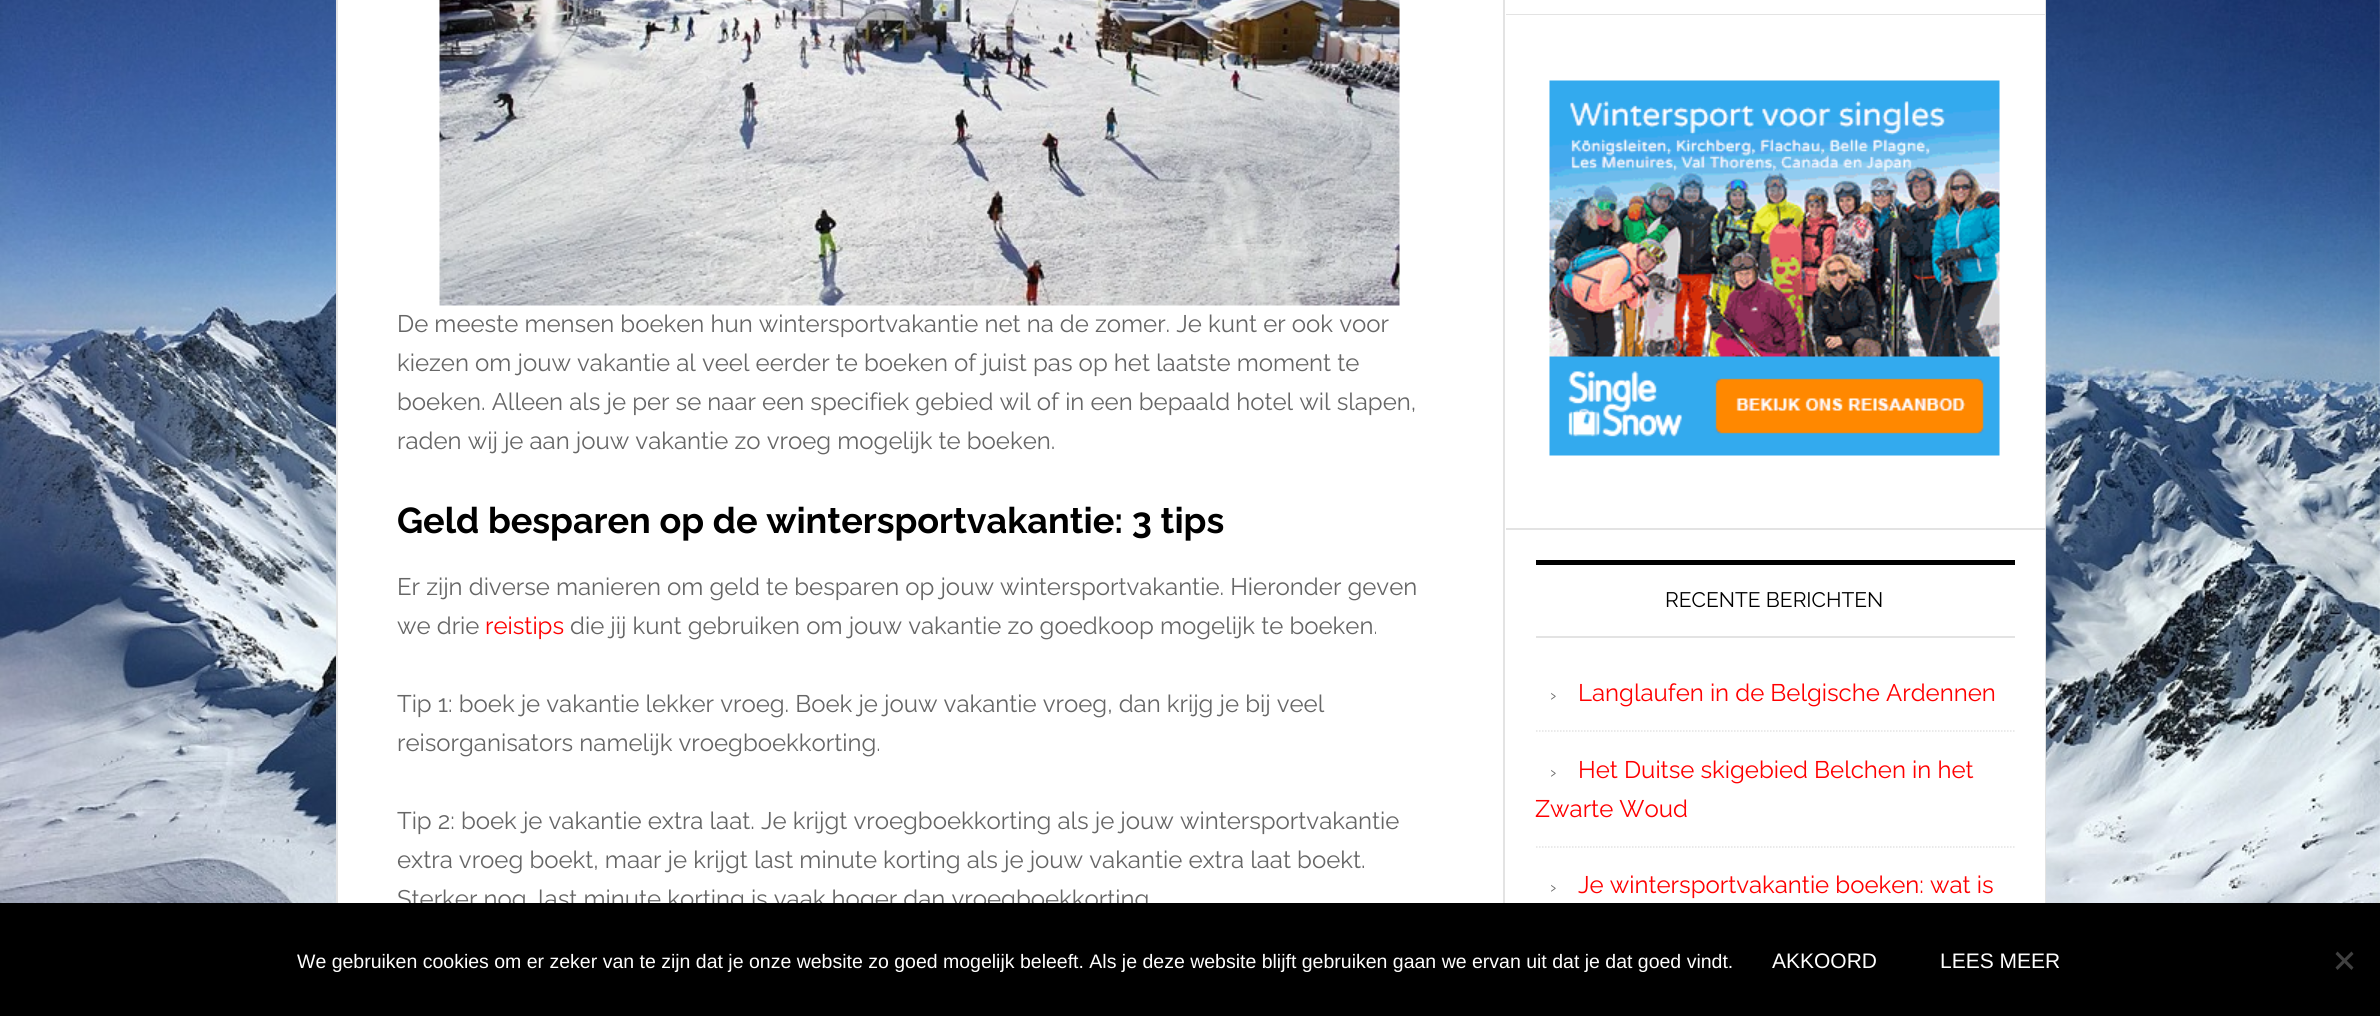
import math
import cairo



def draw_image(context, path, x, y, w, h):
    context.save()
    context.set_source_surface(cairo.ImageSurface.create_from_png(path), x, y)
    context.rectangle(x, y, w, h)
    context.fill()
    context.restore()


def draw(context):
    context.set_source_rgb(1, 1, 1)
    context.paint()
    draw_image(context, "images/1.png", 0, 0, 2380, 903)
    context.set_source_rgb(1, 1, 1)
    context.rectangle(338, 0, 1168, 903)
    context.fill()
    context.rectangle(337, -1, 1708, 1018)
    context.set_source_rgb(227 / 255, 227 / 255, 227 / 255)
    context.stroke()
    context.rectangle(1503, 0, 2, 903)
    context.fill()
    draw_image(context, "images/2.png", 439, 0, 961, 306)
    context.set_source_rgb(1, 1, 1)
    context.rectangle(1506, 0, 539, 14)
    context.fill()
    context.set_source_rgb(227 / 255, 227 / 255, 227 / 255)
    context.rectangle(1506, 14, 539, 1)
    context.fill()
    context.set_source_rgb(1, 1, 1)
    context.rectangle(1506, 15, 539, 513)
    context.fill()
    context.set_source_rgb(227 / 255, 227 / 255, 227 / 255)
    context.rectangle(1506, 528, 539, 2)
    context.fill()
    draw_image(context, "images/3.png", 1549, 80, 451, 376)
    context.set_source_rgb(1, 1, 1)
    context.rectangle(1506, 530, 539, 373)
    context.fill()
    context.set_source_rgb(0, 0, 0)
    context.rectangle(1536, 560, 479, 5)
    context.fill()
    context.set_source_rgb(227 / 255, 227 / 255, 227 / 255)
    context.rectangle(1536, 636, 479, 2)
    context.fill()
    context.new_path()
    context.move_to(1536, 731)
    context.line_to(2014.5, 731)
    context.set_line_width(1.5)
    context.set_dash([1.5, 1.5])
    context.stroke()
    context.new_path()
    context.move_to(1536, 847)
    context.line_to(2014.5, 847)
    context.stroke()
    context.select_font_face("Raleway")
    context.set_font_size(24)
    context.set_source_rgb(102 / 255, 102 / 255, 102 / 255)
    context.move_to(397, 332)
    context.show_text("De meeste mensen boeken hun wintersportvakantie net na de zomer. Je kunt er ook voor")
    context.move_to(397, 371)
    context.show_text("kiezen om jouw vakantie al veel eerder te boeken of juist pas op het laatste moment te")
    context.move_to(397, 410)
    context.show_text("boeken. Alleen als je per se naar een specifiek gebied wil of in een bepaald hotel wil slapen,")
    context.move_to(397, 449)
    context.show_text("raden wij je aan jouw vakantie zo vroeg mogelijk te boeken.")
    context.select_font_face("Raleway", cairo.FontSlant.NORMAL, cairo.FontWeight.BOLD)
    context.set_font_size(36)
    context.set_source_rgb(0, 0, 0)
    context.move_to(397, 533)
    context.show_text("Geld besparen op de wintersportvakantie: 3 tips")
    context.select_font_face("Raleway")
    context.set_font_size(24)
    context.set_source_rgb(102 / 255, 102 / 255, 102 / 255)
    context.move_to(397, 595)
    context.show_text("Er zijn diverse manieren om geld te besparen op jouw wintersportvakantie. Hieronder geven")
    context.move_to(397, 634)
    context.show_text("we drie")
    context.set_source_rgb(1, 0, 0)
    context.move_to(485, 634)
    context.show_text("reistips")
    context.set_source_rgb(102 / 255, 102 / 255, 102 / 255)
    context.move_to(570, 634)
    context.show_text("die jij kunt gebruiken om jouw vakantie zo goedkoop mogelijk te boeken.")
    context.move_to(397, 712)
    context.show_text("Tip 1: boek je vakantie lekker vroeg. Boek je jouw vakantie vroeg, dan krijg je bij veel")
    context.move_to(397, 751)
    context.show_text("reisorganisators namelijk vroegboekkorting.")
    context.move_to(397, 829)
    context.show_text("Tip 2: boek je vakantie extra laat. Je krijgt vroegboekkorting als je jouw wintersportvakantie")
    context.move_to(397, 868)
    context.show_text("extra vroeg boekt, maar je krijgt last minute korting als je jouw vakantie extra laat boekt.")
    context.move_to(397, 907)
    context.show_text("Sterker nog, last minute korting is vaak hoger dan vroegboekkorting")
    context.set_font_size(21)
    context.set_source_rgb(0, 0, 0)
    context.move_to(1665, 607)
    context.show_text("RECENTE BERICHTEN")
    context.set_font_size(18)
    context.set_source_rgb(102 / 255, 102 / 255, 102 / 255)
    context.move_to(1550, 701)
    context.show_text("›")
    context.set_font_size(24)
    context.set_source_rgb(1, 0, 0)
    context.move_to(1578, 701)
    context.show_text("Langlaufen in de Belgische Ardennen")
    context.set_font_size(18)
    context.set_source_rgb(102 / 255, 102 / 255, 102 / 255)
    context.move_to(1550, 778)
    context.show_text("›")
    context.set_font_size(24)
    context.set_source_rgb(1, 0, 0)
    context.move_to(1578, 778)
    context.show_text("Het Duitse skigebied Belchen in het")
    context.move_to(1535, 817)
    context.show_text("Zwarte Woud")
    context.set_font_size(18)
    context.set_source_rgb(102 / 255, 102 / 255, 102 / 255)
    context.move_to(1550, 893)
    context.show_text("›")
    context.set_font_size(24)
    context.set_source_rgb(1, 0, 0)
    context.move_to(1578, 893)
    context.show_text("Je wintersportvakantie boeken: wat is")
    context.set_source_rgb(0, 0, 0)
    context.rectangle(0, 903, 2380, 113)
    context.fill()
    context.select_font_face("Liberation Sans")
    context.set_font_size(19.5)
    context.set_source_rgb(1, 1, 1)
    context.move_to(297, 968)
    context.show_text("We gebruiken cookies om er zeker van te zijn dat je onze website zo goed mogelijk beleeft. Als je deze website blijft gebruiken gaan we ervan uit dat je dat goed vindt.")
    context.set_font_size(21)
    context.move_to(1772, 968)
    context.show_text("AKKOORD")
    context.move_to(1940, 968)
    context.show_text("LEES MEER")
    context.set_source_rgb(64 / 255, 64 / 255, 64 / 255)
    context.new_path()
    context.move_to(2351.5, 951.5)
    context.line_to(2353.5, 954)
    context.line_to(2337.5, 970)
    context.line_to(2335.5, 967.5)
    context.close_path()
    context.fill()
    context.new_path()
    context.move_to(2335.5, 954)
    context.line_to(2337.5, 951.5)
    context.line_to(2353.5, 967.5)
    context.line_to(2351.5, 970)
    context.close_path()
    context.fill()


surface = cairo.ImageSurface(cairo.Format.RGB24, 2380, 1016)
context = cairo.Context(surface)
options = cairo.FontOptions()
options.set_hint_metrics(cairo.HintMetrics.OFF)
options.set_hint_style(cairo.HintStyle.NONE)
context.set_font_options(options)
context.set_miter_limit(4)
draw(context)
surface.write_to_png("out.png")
